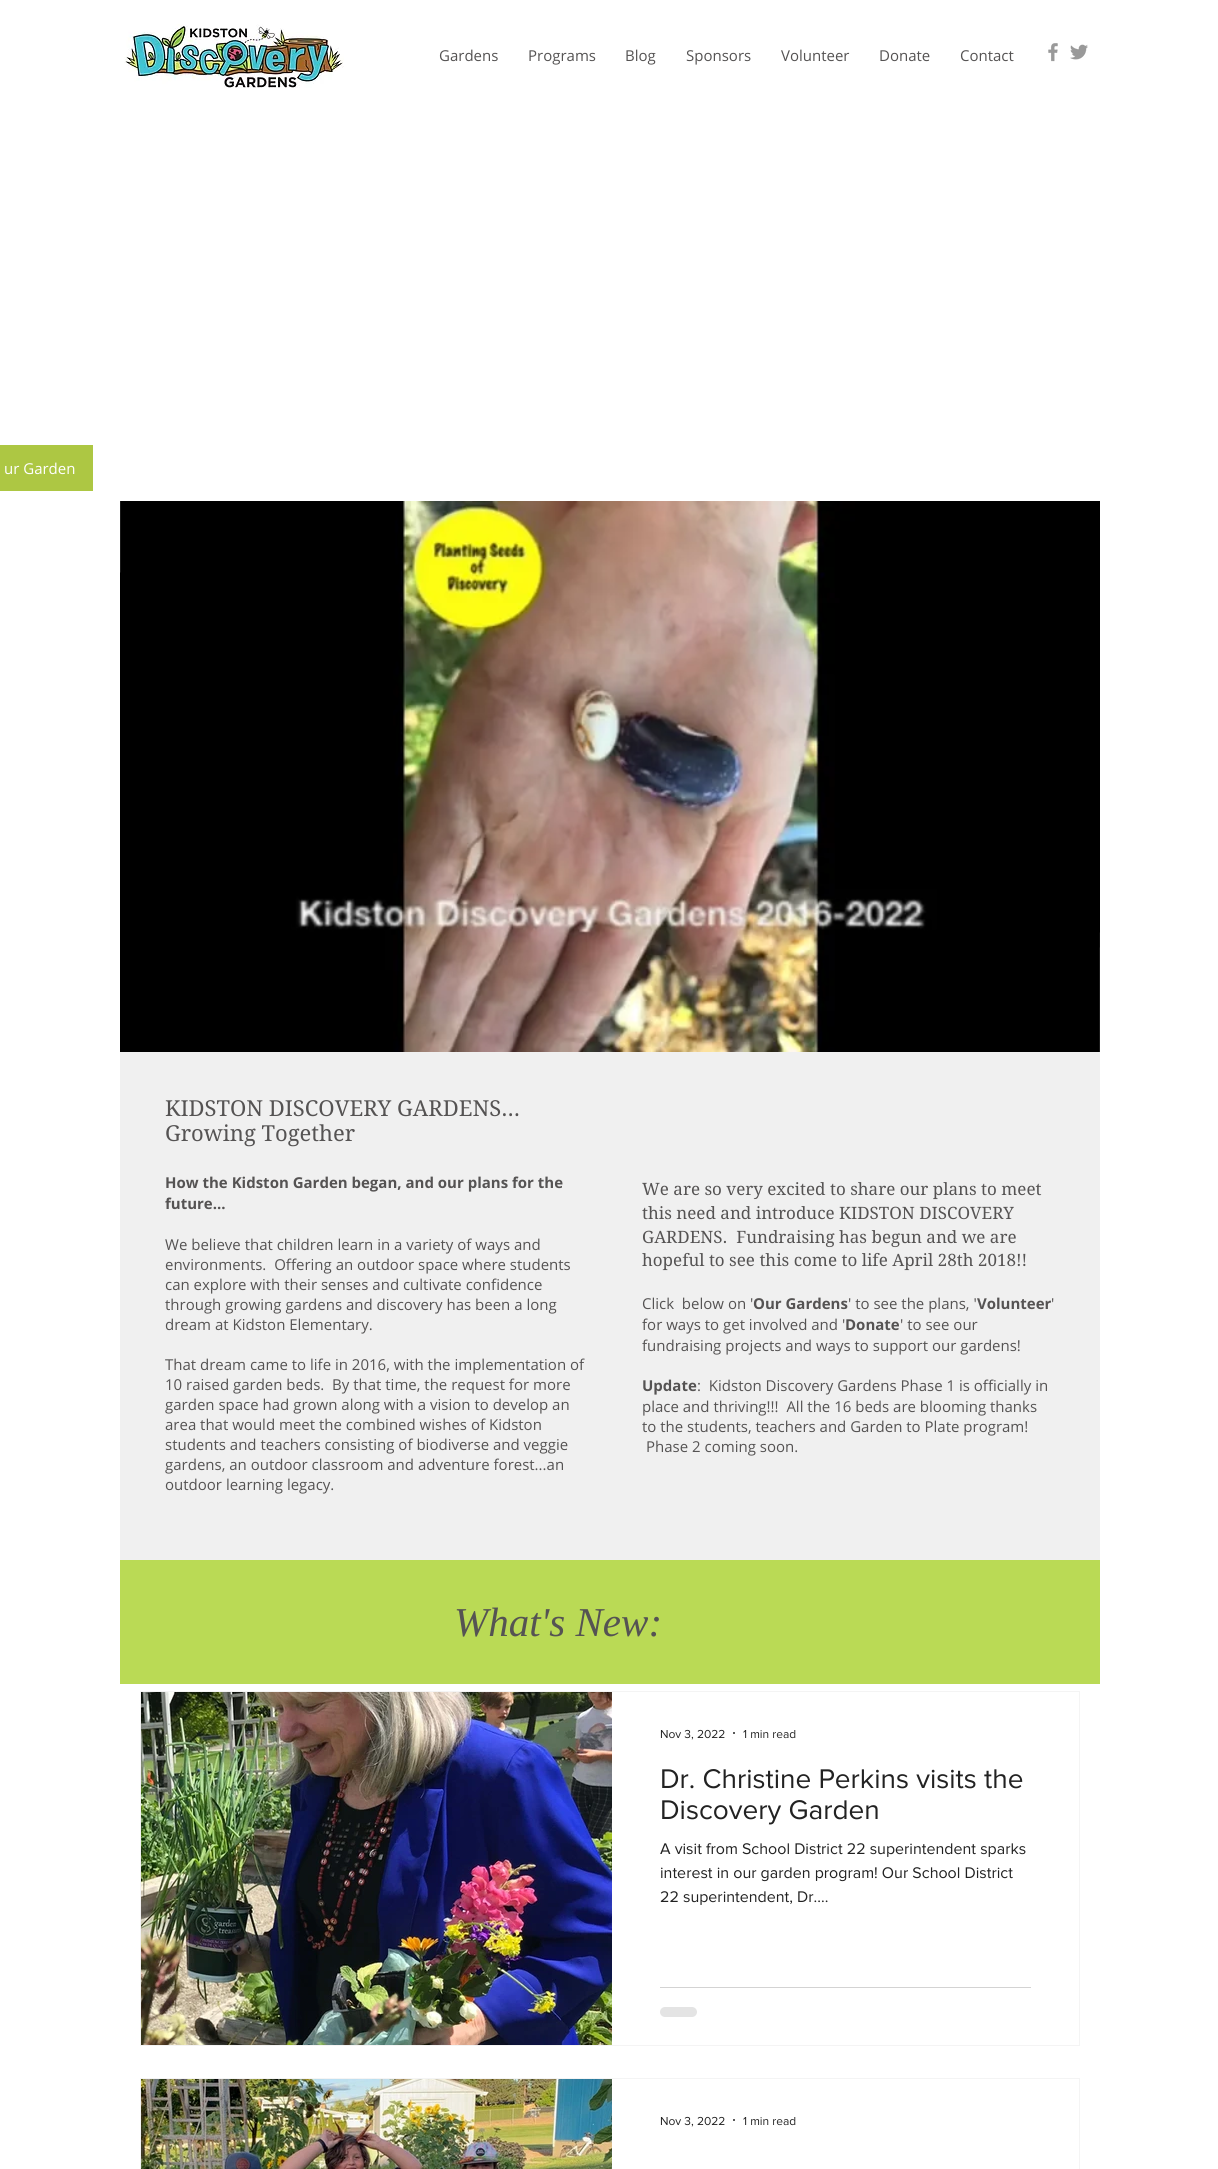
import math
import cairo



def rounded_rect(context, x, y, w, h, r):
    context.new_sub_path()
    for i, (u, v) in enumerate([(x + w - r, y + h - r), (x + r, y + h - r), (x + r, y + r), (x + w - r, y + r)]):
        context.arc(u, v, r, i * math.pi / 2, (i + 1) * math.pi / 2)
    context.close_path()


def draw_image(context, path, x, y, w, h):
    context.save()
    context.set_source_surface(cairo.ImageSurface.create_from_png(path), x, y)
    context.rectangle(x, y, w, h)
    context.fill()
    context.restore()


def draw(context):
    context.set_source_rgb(1, 1, 1)
    context.paint()
    draw_image(context, "images/1.png", 124, 24, 220, 64)
    draw_image(context, "images/2.png", 1048, 43, 10, 19)
    draw_image(context, "images/3.png", 1070, 44, 18, 16)
    context.set_source_rgb(173 / 255, 199 / 255, 67 / 255)
    context.rectangle(0, 445, 93, 46)
    context.fill()
    context.set_source_rgb(240 / 255, 240 / 255, 240 / 255)
    context.rectangle(120, 501, 980, 1059)
    context.fill()
    draw_image(context, "images/4.png", 120, 501, 980, 551)
    context.set_source_rgb(186 / 255, 218 / 255, 85 / 255)
    context.rectangle(120, 1560, 980, 124)
    context.fill()
    context.rectangle(140.5, 1691.5, 939, 354)
    context.set_source_rgb(244 / 255, 244 / 255, 244 / 255)
    context.set_line_width(1)
    context.stroke()
    draw_image(context, "images/5.png", 141, 1692, 471, 353)
    context.set_source_rgb(34 / 255, 34 / 255, 34 / 255)
    context.arc(734, 1733, 1, 0, 2 * math.pi)
    context.fill()
    context.set_source_rgb(211 / 255, 211 / 255, 211 / 255)
    context.rectangle(660, 1987, 371, 1)
    context.fill()
    context.set_source_rgb(228 / 255, 228 / 255, 228 / 255)
    rounded_rect(context, 660, 2007, 37, 10, 5)
    context.fill()
    context.rectangle(140.5, 2078.5, 939, 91)
    context.set_source_rgb(244 / 255, 244 / 255, 244 / 255)
    context.stroke()
    draw_image(context, "images/6.png", 141, 2079, 471, 90)
    context.set_source_rgb(34 / 255, 34 / 255, 34 / 255)
    context.arc(734, 2120, 1, 0, 2 * math.pi)
    context.fill()
    context.select_font_face("Open Sans")
    context.set_font_size(15)
    context.set_source_rgb(85 / 255, 83 / 255, 83 / 255)
    context.move_to(439, 61)
    context.show_text("Gardens")
    context.move_to(528, 61)
    context.show_text("Programs")
    context.move_to(625, 61)
    context.show_text("Blog")
    context.move_to(686, 61)
    context.show_text("Sponsors")
    context.move_to(781, 61)
    context.show_text("Volunteer")
    context.move_to(879, 61)
    context.show_text("Donate")
    context.move_to(960, 61)
    context.show_text("Contact")
    context.set_source_rgb(1, 1, 1)
    context.move_to(4, 474)
    context.show_text("ur Garden")
    context.select_font_face("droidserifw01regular")
    context.set_font_size(22)
    context.set_source_rgb(85 / 255, 83 / 255, 83 / 255)
    context.move_to(165, 1116)
    context.show_text("KIDSTON DISCOVERY GARDENS...")
    context.move_to(165, 1141)
    context.show_text("Growing Together")
    context.select_font_face("Open Sans", cairo.FontSlant.NORMAL, cairo.FontWeight.BOLD)
    context.set_font_size(15)
    context.move_to(165, 1188)
    context.show_text("How the Kidston Garden began, and our plans for the")
    context.move_to(165, 1209)
    context.show_text("future...")
    context.select_font_face("Open Sans")
    context.move_to(165, 1250)
    context.show_text("We believe that children learn in a variety of ways and")
    context.move_to(165, 1270)
    context.show_text("environments.  Offering an outdoor space where students")
    context.move_to(165, 1290)
    context.show_text("can explore with their senses and cultivate confidence")
    context.move_to(165, 1310)
    context.show_text("through growing gardens and discovery has been a long")
    context.move_to(165, 1330)
    context.show_text("dream at Kidston Elementary.")
    context.move_to(165, 1370)
    context.show_text("That dream came to life in 2016, with the implementation of")
    context.move_to(165, 1390)
    context.show_text("10 raised garden beds.  By that time, the request for more")
    context.move_to(165, 1410)
    context.show_text("garden space had grown along with a vision to develop an")
    context.move_to(165, 1430)
    context.show_text("area that would meet the combined wishes of Kidston")
    context.move_to(165, 1450)
    context.show_text("students and teachers consisting of biodiverse and veggie")
    context.move_to(165, 1470)
    context.show_text("gardens, an outdoor classroom and adventure forest...an")
    context.move_to(165, 1490)
    context.show_text("outdoor learning legacy.")
    context.select_font_face("droidserifw01regular")
    context.set_font_size(17)
    context.move_to(642, 1195)
    context.show_text("We are so very excited to share our plans to meet")
    context.move_to(642, 1219)
    context.show_text("this need and introduce KIDSTON DISCOVERY")
    context.move_to(642, 1243)
    context.show_text("GARDENS.  Fundraising has begun and we are")
    context.move_to(642, 1266)
    context.show_text("hopeful to see this come to life April 28th 2018!!")
    context.select_font_face("Open Sans")
    context.set_font_size(15)
    context.move_to(642, 1309)
    context.show_text("Click  below on '")
    context.select_font_face("Open Sans", cairo.FontSlant.NORMAL, cairo.FontWeight.BOLD)
    context.move_to(753, 1309)
    context.show_text("Our Gardens")
    context.select_font_face("Open Sans")
    context.move_to(848, 1309)
    context.show_text("' to see the plans, '")
    context.select_font_face("Open Sans", cairo.FontSlant.NORMAL, cairo.FontWeight.BOLD)
    context.move_to(977, 1309)
    context.show_text("Volunteer")
    context.select_font_face("Open Sans")
    context.move_to(1051, 1309)
    context.show_text("'")
    context.move_to(642, 1330)
    context.show_text("for ways to get involved and '")
    context.select_font_face("Open Sans", cairo.FontSlant.NORMAL, cairo.FontWeight.BOLD)
    context.move_to(845, 1330)
    context.show_text("Donate")
    context.select_font_face("Open Sans")
    context.move_to(900, 1330)
    context.show_text("' to see our")
    context.move_to(642, 1351)
    context.show_text("fundraising projects and ways to support our gardens!")
    context.select_font_face("Open Sans", cairo.FontSlant.NORMAL, cairo.FontWeight.BOLD)
    context.move_to(642, 1391)
    context.show_text("Update")
    context.select_font_face("Open Sans")
    context.move_to(697, 1391)
    context.show_text(":  Kidston Discovery Gardens Phase 1 is officially in")
    context.move_to(642, 1412)
    context.show_text("place and thriving!!!  All the 16 beds are blooming thanks")
    context.move_to(642, 1432)
    context.show_text("to the students, teachers and Garden to Plate program!")
    context.move_to(646, 1452)
    context.show_text("Phase 2 coming soon.")
    context.select_font_face("Liberation Serif", cairo.FontSlant.ITALIC)
    context.set_font_size(41)
    context.move_to(454, 1636)
    context.show_text("What's New:")
    context.select_font_face("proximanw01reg")
    context.set_font_size(12)
    context.set_source_rgb(34 / 255, 34 / 255, 34 / 255)
    context.move_to(660, 1738)
    context.show_text("Nov 3, 2022")
    context.move_to(743, 1738)
    context.show_text("1 min read")
    context.set_font_size(28)
    context.move_to(660, 1788)
    context.show_text("Dr. Christine Perkins visits the")
    context.move_to(660, 1819)
    context.show_text("Discovery Garden")
    context.set_font_size(16)
    context.move_to(660, 1854)
    context.show_text("A visit from School District 22 superintendent sparks")
    context.move_to(660, 1878)
    context.show_text("interest in our garden program! Our School District")
    context.move_to(660, 1902)
    context.show_text("22 superintendent, Dr....")
    context.set_font_size(12)
    context.move_to(660, 2125)
    context.show_text("Nov 3, 2022")
    context.move_to(743, 2125)
    context.show_text("1 min read")


surface = cairo.ImageSurface(cairo.Format.RGB24, 1218, 2169)
context = cairo.Context(surface)
options = cairo.FontOptions()
options.set_hint_metrics(cairo.HintMetrics.OFF)
options.set_hint_style(cairo.HintStyle.NONE)
context.set_font_options(options)
context.set_miter_limit(4)
draw(context)
surface.write_to_png("out.png")
